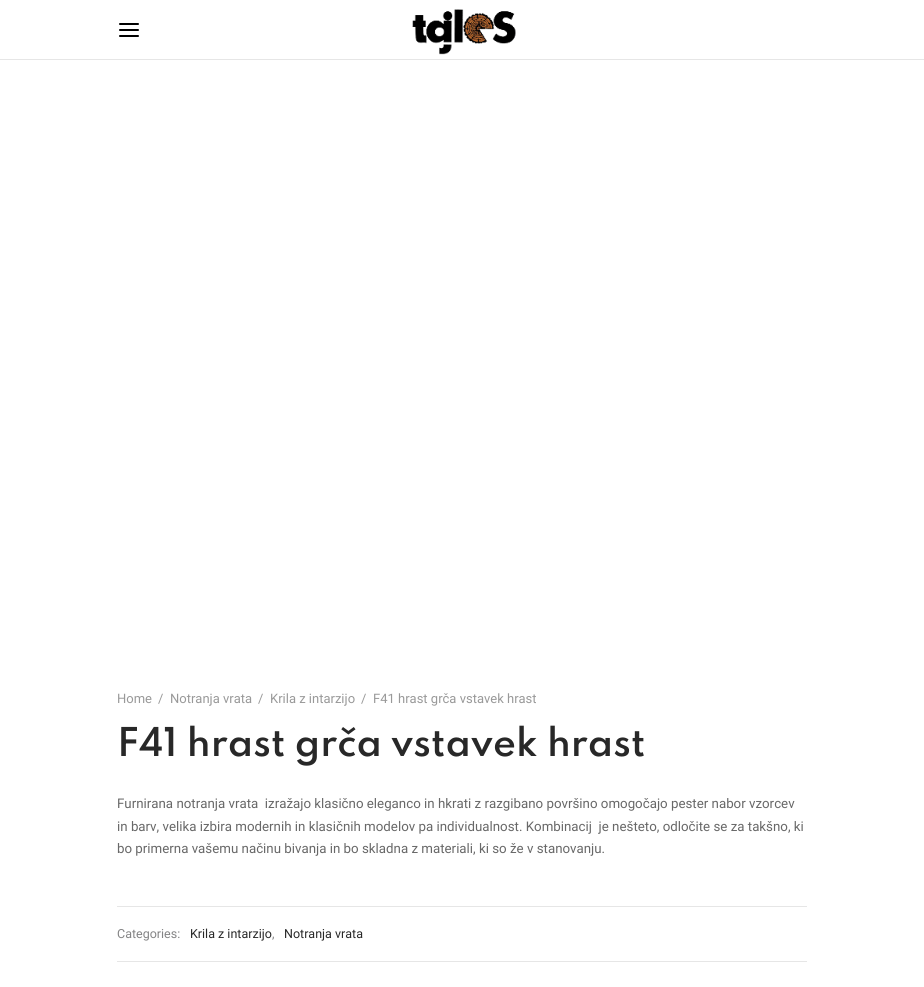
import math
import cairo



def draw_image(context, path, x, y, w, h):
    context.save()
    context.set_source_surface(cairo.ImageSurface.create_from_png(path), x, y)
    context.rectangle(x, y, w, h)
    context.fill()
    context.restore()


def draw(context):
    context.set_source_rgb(1, 1, 1)
    context.paint()
    context.new_path()
    context.move_to(120, 30)
    context.line_to(138, 30)
    context.move_to(120, 24)
    context.line_to(138, 24)
    context.move_to(120, 36)
    context.line_to(138, 36)
    context.set_source_rgb(0, 0, 0)
    context.set_line_cap(cairo.LineCap.ROUND)
    context.set_line_join(cairo.LineJoin.ROUND)
    context.stroke()
    draw_image(context, "images/1.png", 412, 9, 104, 46)
    context.set_source_rgb(230 / 255, 230 / 255, 230 / 255)
    context.rectangle(0, 59, 924, 1)
    context.fill()
    context.rectangle(117, 906, 690, 1)
    context.fill()
    context.rectangle(117, 961, 690, 1)
    context.fill()
    context.select_font_face("Roboto")
    context.set_font_size(13)
    context.set_source_rgb(153 / 255, 153 / 255, 153 / 255)
    context.move_to(117, 703)
    context.show_text("Home")
    context.move_to(158, 703)
    context.show_text("/")
    context.move_to(170, 703)
    context.show_text("Notranja vrata")
    context.move_to(258, 703)
    context.show_text("/")
    context.move_to(270, 703)
    context.show_text("Krila z intarzijo")
    context.move_to(361, 703)
    context.show_text("/")
    context.move_to(373, 703)
    context.show_text("F41 hrast grča vstavek hrast")
    context.select_font_face("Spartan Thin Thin")
    context.set_font_size(35.25)
    context.set_source_rgb(40 / 255, 40 / 255, 40 / 255)
    context.move_to(117, 756)
    context.show_text("F41 hrast grča vstavek hrast")
    context.select_font_face("Roboto")
    context.set_font_size(13.3)
    context.set_source_rgb(104 / 255, 104 / 255, 104 / 255)
    context.move_to(117, 808)
    context.show_text("Furnirana notranja vrata  izražajo klasično eleganco in hkrati z razgibano površino omogočajo pester nabor vzorcev")
    context.move_to(117, 831)
    context.show_text("in barv, velika izbira modernih in klasičnih modelov pa individualnost. Kombinacij  je nešteto, odločite se za takšno, ki")
    context.move_to(117, 853)
    context.show_text("bo primerna vašemu načinu bivanja in bo skladna z materiali, ki so že v stanovanju.")
    context.set_font_size(12.5)
    context.set_source_rgb(132 / 255, 132 / 255, 133 / 255)
    context.move_to(117, 938)
    context.show_text("Categories:")
    context.set_source_rgb(40 / 255, 40 / 255, 40 / 255)
    context.move_to(190, 938)
    context.show_text("Krila z intarzijo")
    context.set_source_rgb(132 / 255, 132 / 255, 133 / 255)
    context.move_to(272, 938)
    context.show_text(",")
    context.set_source_rgb(40 / 255, 40 / 255, 40 / 255)
    context.move_to(284, 938)
    context.show_text("Notranja vrata")


surface = cairo.ImageSurface(cairo.Format.RGB24, 924, 987)
context = cairo.Context(surface)
options = cairo.FontOptions()
options.set_hint_metrics(cairo.HintMetrics.OFF)
options.set_hint_style(cairo.HintStyle.NONE)
context.set_font_options(options)
context.set_miter_limit(4)
draw(context)
surface.write_to_png("out.png")
